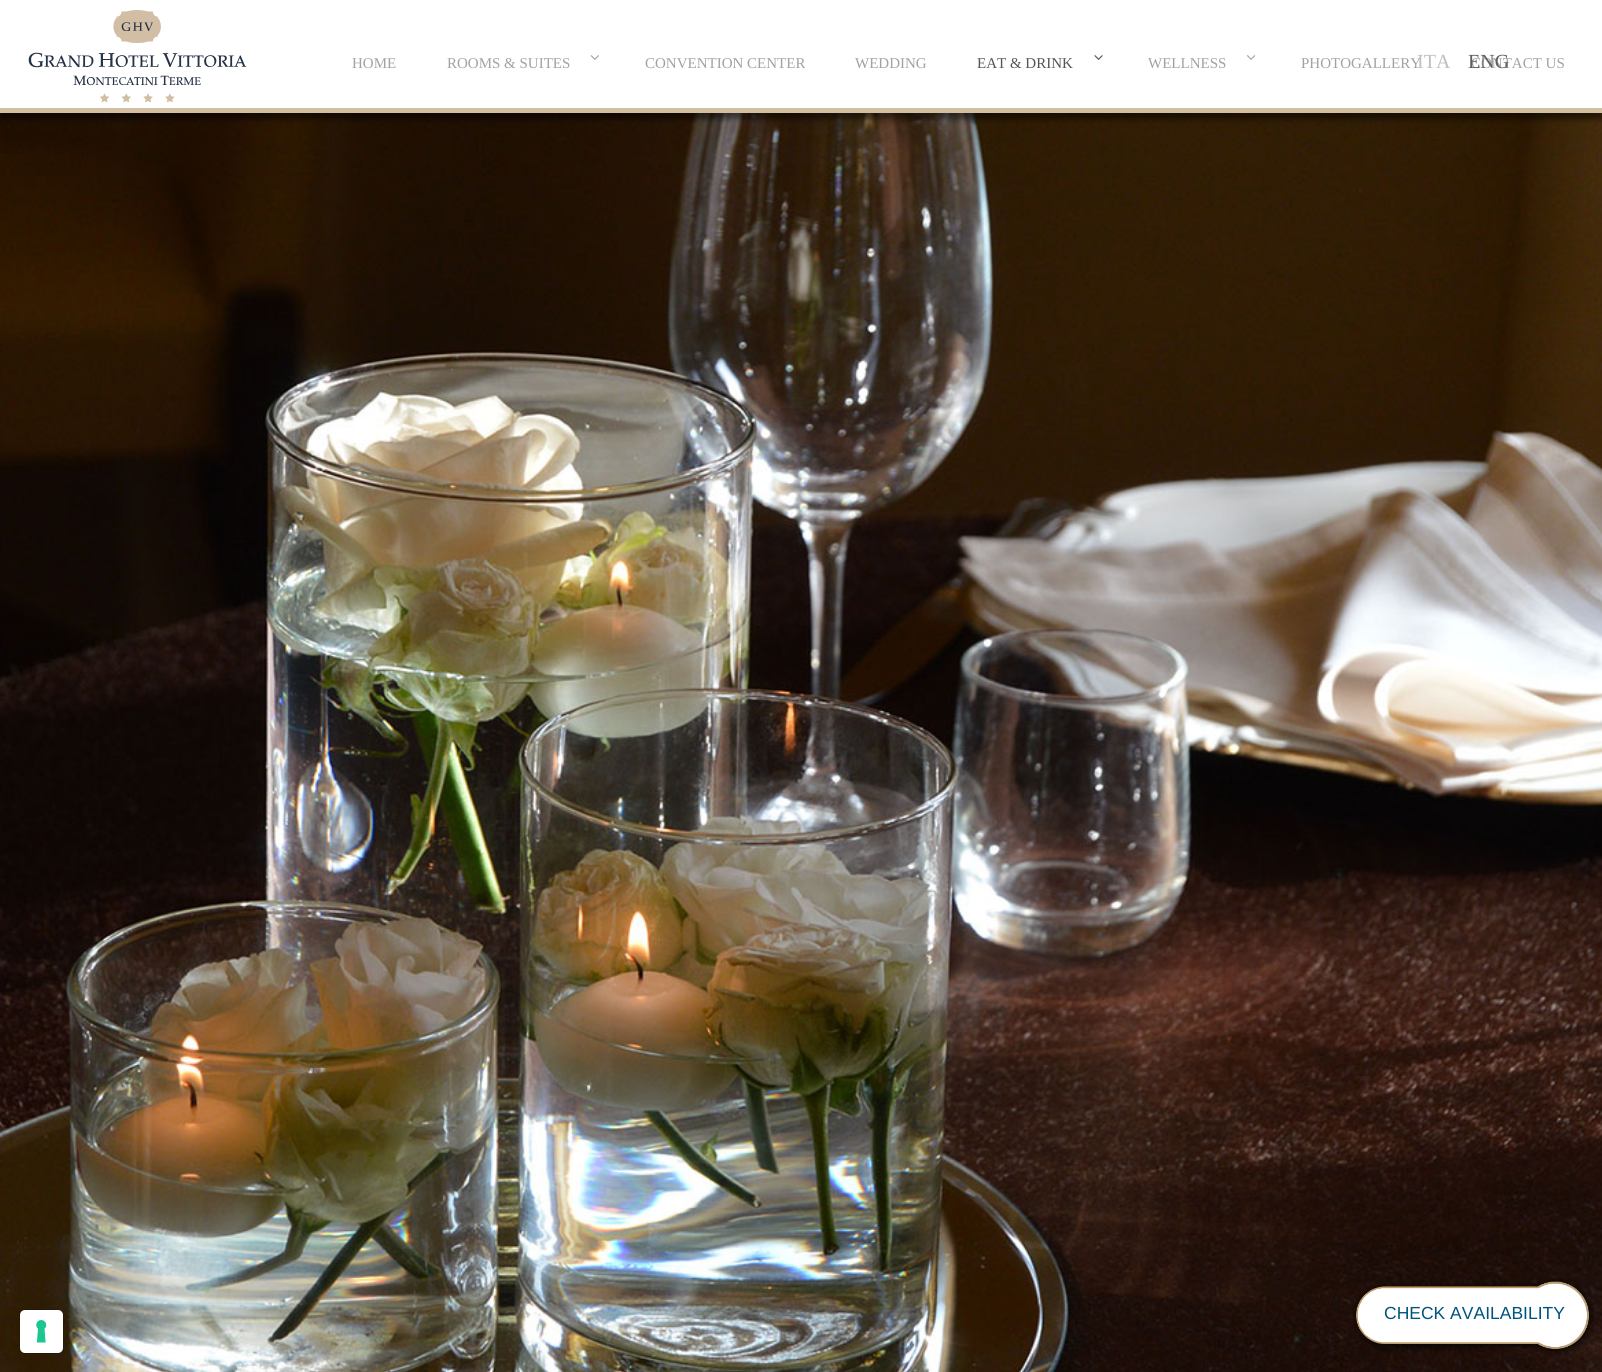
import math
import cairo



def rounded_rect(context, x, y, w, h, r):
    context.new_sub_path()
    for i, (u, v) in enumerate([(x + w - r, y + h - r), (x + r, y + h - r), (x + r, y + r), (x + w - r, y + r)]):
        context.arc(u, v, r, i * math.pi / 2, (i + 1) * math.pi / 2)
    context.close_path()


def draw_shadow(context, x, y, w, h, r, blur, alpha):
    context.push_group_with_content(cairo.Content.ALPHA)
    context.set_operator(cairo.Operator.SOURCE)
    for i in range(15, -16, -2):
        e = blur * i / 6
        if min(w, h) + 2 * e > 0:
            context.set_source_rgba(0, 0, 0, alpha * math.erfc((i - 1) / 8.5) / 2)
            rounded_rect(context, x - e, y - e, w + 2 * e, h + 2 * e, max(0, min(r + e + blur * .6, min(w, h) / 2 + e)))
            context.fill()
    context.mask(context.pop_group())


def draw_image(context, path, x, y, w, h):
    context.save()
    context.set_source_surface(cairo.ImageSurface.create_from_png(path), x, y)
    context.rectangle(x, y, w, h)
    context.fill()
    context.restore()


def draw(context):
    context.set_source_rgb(1, 1, 1)
    context.paint()
    draw_image(context, "images/5.png", 0, 113, 1602, 1259)
    context.set_source_rgb(0, 0, 0)
    draw_shadow(context, 0, 6, 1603, 113, 0, 3, 0.51)
    context.set_source_rgb(1, 1, 1)
    context.rectangle(0, 0, 1602, 108)
    context.fill()
    context.set_source_rgb(212 / 255, 191 / 255, 163 / 255)
    context.rectangle(0, 108, 1602, 5)
    context.fill()
    draw_image(context, "images/1.png", 28, 10, 219, 93)
    draw_image(context, "images/2.png", 590, 55, 9, 5)
    draw_image(context, "images/3.png", 1094, 55, 9, 5)
    draw_image(context, "images/4.png", 1247, 55, 9, 5)
    draw_image(context, "images/6.png", 1352, 1279, 243, 77)
    rounded_rect(context, 19.5, 1309.5, 44, 44, 5.5)
    context.set_source_rgba(0, 0, 0, 0.15)
    context.set_line_width(1)
    context.stroke()
    context.set_source_rgb(1, 1, 1)
    rounded_rect(context, 20, 1310, 43, 43, 5)
    context.fill()
    draw_image(context, "images/7.png", 36, 1320, 11, 23)
    context.select_font_face("Liberation Serif")
    context.set_font_size(15)
    context.set_source_rgb(162 / 255, 162 / 255, 162 / 255)
    context.move_to(352, 68)
    context.show_text("HOME")
    context.move_to(447, 68)
    context.show_text("ROOMS & SUITES")
    context.move_to(645, 68)
    context.show_text("CONVENTION CENTER")
    context.move_to(855, 68)
    context.show_text("WEDDING")
    context.set_source_rgb(84 / 255, 84 / 255, 84 / 255)
    context.move_to(977, 68)
    context.show_text("EAT & DRINK")
    context.set_source_rgb(162 / 255, 162 / 255, 162 / 255)
    context.move_to(1148, 68)
    context.show_text("WELLNESS")
    context.move_to(1301, 68)
    context.show_text("PHOTOGALLERY")
    context.set_font_size(20)
    context.set_source_rgb(191 / 255, 191 / 255, 191 / 255)
    context.move_to(1417, 68)
    context.show_text("ITA")
    context.set_font_size(15)
    context.set_source_rgb(162 / 255, 162 / 255, 162 / 255)
    context.move_to(1471, 68)
    context.show_text("CONTACT US")
    context.set_font_size(20)
    context.set_source_rgb(94 / 255, 94 / 255, 94 / 255)
    context.move_to(1468, 68)
    context.show_text("ENG")
    context.select_font_face("Liberation Sans")
    context.set_font_size(17.5)
    context.set_source_rgb(0, 83 / 255, 125 / 255)
    context.move_to(1384, 1319)
    context.show_text("CHECK AVAILABILITY")


surface = cairo.ImageSurface(cairo.Format.RGB24, 1602, 1372)
context = cairo.Context(surface)
options = cairo.FontOptions()
options.set_hint_metrics(cairo.HintMetrics.OFF)
options.set_hint_style(cairo.HintStyle.NONE)
context.set_font_options(options)
context.set_miter_limit(4)
draw(context)
surface.write_to_png("out.png")
